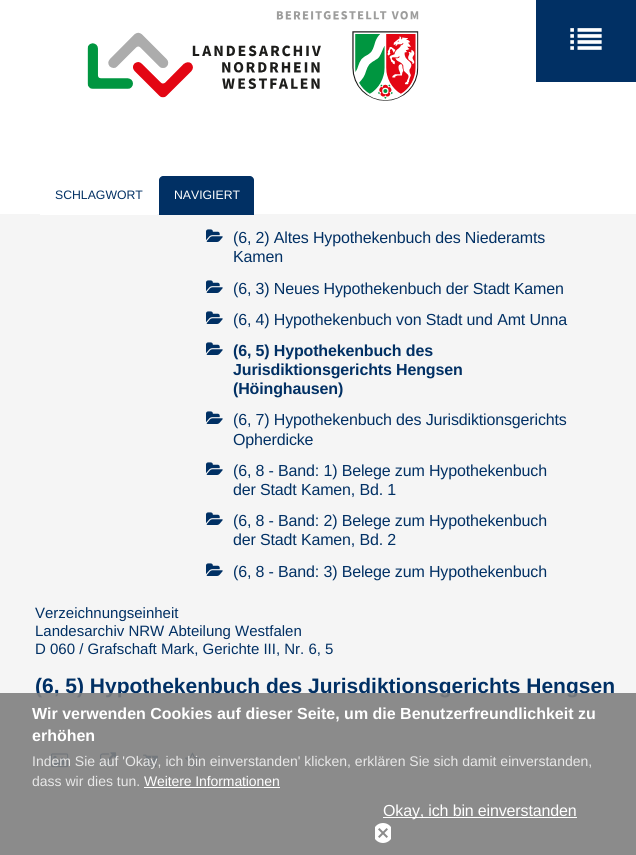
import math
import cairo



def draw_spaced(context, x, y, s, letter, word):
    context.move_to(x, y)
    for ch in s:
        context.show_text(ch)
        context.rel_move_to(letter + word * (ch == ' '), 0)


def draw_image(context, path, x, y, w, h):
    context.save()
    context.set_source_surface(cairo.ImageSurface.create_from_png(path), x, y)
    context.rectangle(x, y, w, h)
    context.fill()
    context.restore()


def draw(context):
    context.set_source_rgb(1, 1, 1)
    context.paint()
    draw_image(context, "images/1.png", 87, 11, 332, 90)
    context.set_source_rgb(1 / 255, 48 / 255, 100 / 255)
    context.rectangle(536, 0, 100, 82)
    context.fill()
    draw_image(context, "images/2.png", 570, 28, 32, 22)
    context.set_source_rgb(245 / 255, 245 / 255, 245 / 255)
    context.rectangle(0, 214, 636, 641)
    context.fill()
    context.set_source_rgb(1, 1, 1)
    context.new_path()
    context.move_to(44, 176)
    context.line_to(153, 176)
    context.curve_to(155, 176, 157, 178, 157, 180)
    context.line_to(157, 215)
    context.line_to(40, 215)
    context.line_to(40, 180)
    context.curve_to(40, 178, 42, 176, 44, 176)
    context.close_path()
    context.fill()
    context.set_source_rgb(1 / 255, 48 / 255, 100 / 255)
    context.new_path()
    context.move_to(163, 176)
    context.line_to(250, 176)
    context.curve_to(252, 176, 254, 178, 254, 180)
    context.line_to(254, 215)
    context.line_to(159, 215)
    context.line_to(159, 180)
    context.curve_to(159, 178, 161, 176, 163, 176)
    context.close_path()
    context.fill()
    draw_image(context, "images/3.png", 206, 229, 17, 13)
    draw_image(context, "images/3.png", 206, 280, 17, 13)
    draw_image(context, "images/3.png", 206, 311, 17, 13)
    draw_image(context, "images/3.png", 206, 342, 17, 13)
    draw_image(context, "images/3.png", 206, 411, 17, 13)
    draw_image(context, "images/3.png", 206, 462, 17, 13)
    draw_image(context, "images/3.png", 206, 512, 17, 13)
    draw_image(context, "images/3.png", 206, 563, 17, 13)
    draw_image(context, "images/4.png", 51, 753, 18, 15)
    draw_image(context, "images/5.png", 100, 752, 16, 14)
    draw_image(context, "images/6.png", 143, 754, 15, 14)
    draw_image(context, "images/7.png", 185, 752, 15, 15)
    context.select_font_face("Liberation Sans")
    context.set_font_size(12.25)
    context.move_to(55, 199)
    context.show_text("SCHLAGWORT")
    context.set_source_rgb(1, 1, 1)
    context.move_to(174, 199)
    context.show_text("NAVIGIERT")
    context.set_font_size(16)
    context.set_source_rgb(1 / 255, 48 / 255, 100 / 255)
    draw_spaced(context, 233, 243, "(6, 2) Altes Hypothekenbuch des Niederamts", -0.15, 0)
    draw_spaced(context, 233, 262, "Kamen", -0.15, 0)
    draw_spaced(context, 233, 294, "(6, 3) Neues Hypothekenbuch der Stadt Kamen", -0.15, 0)
    draw_spaced(context, 233, 325, "(6, 4) Hypothekenbuch von Stadt und Amt Unna", -0.15, 0)
    context.select_font_face("Liberation Sans", cairo.FontSlant.NORMAL, cairo.FontWeight.BOLD)
    draw_spaced(context, 233, 356, "(6, 5) Hypothekenbuch des", -0.15, 0)
    draw_spaced(context, 233, 375, "Jurisdiktionsgerichts Hengsen", -0.15, 0)
    draw_spaced(context, 233, 394, "(Höinghausen)", -0.15, 0)
    context.select_font_face("Liberation Sans")
    draw_spaced(context, 233, 425, "(6, 7) Hypothekenbuch des Jurisdiktionsgerichts", -0.15, 0)
    draw_spaced(context, 233, 445, "Opherdicke", -0.15, 0)
    draw_spaced(context, 233, 476, "(6, 8 - Band: 1) Belege zum Hypothekenbuch", -0.15, 0)
    draw_spaced(context, 233, 495, "der Stadt Kamen, Bd. 1", -0.15, 0)
    draw_spaced(context, 233, 526, "(6, 8 - Band: 2) Belege zum Hypothekenbuch", -0.15, 0)
    draw_spaced(context, 233, 545, "der Stadt Kamen, Bd. 2", -0.15, 0)
    draw_spaced(context, 233, 577, "(6, 8 - Band: 3) Belege zum Hypothekenbuch", -0.15, 0)
    context.set_font_size(15)
    context.move_to(35, 618)
    context.show_text("Verzeichnungseinheit")
    context.move_to(35, 636)
    context.show_text("Landesarchiv NRW Abteilung Westfalen")
    context.move_to(35, 654)
    context.show_text("D 060 / Grafschaft Mark, Gerichte III, Nr. 6, 5")
    context.select_font_face("Liberation Sans", cairo.FontSlant.NORMAL, cairo.FontWeight.BOLD)
    context.set_font_size(21)
    context.move_to(35, 693)
    context.show_text("(6, 5) Hypothekenbuch des Jurisdiktionsgerichts Hengsen")
    context.set_source_rgba(128 / 255, 128 / 255, 128 / 255, 0.9)
    context.rectangle(0, 693, 636, 162)
    context.fill()
    context.set_font_size(16)
    context.set_source_rgb(1, 1, 1)
    context.move_to(32, 719)
    context.show_text("Wir verwenden Cookies auf dieser Seite, um die Benutzerfreundlichkeit zu")
    context.move_to(32, 741)
    context.show_text("erhöhen")
    context.select_font_face("Liberation Sans")
    context.set_font_size(14)
    context.set_source_rgb(232 / 255, 232 / 255, 232 / 255)
    context.move_to(32, 766)
    context.show_text("Indem Sie auf 'Okay, ich bin einverstanden' klicken, erklären Sie sich damit einverstanden,")
    context.move_to(32, 786)
    context.show_text("dass wir dies tun.")
    context.set_source_rgb(1, 1, 1)
    draw_spaced(context, 144, 786, "Weitere Informationen", -0.1, 0)
    context.rectangle(144, 787, 136, 1)
    context.fill()
    context.rectangle(383, 817, 194, 1)
    context.fill()
    context.set_font_size(16)
    draw_spaced(context, 383, 816, "Okay, ich bin einverstanden", -0.15, 0)
    draw_image(context, "images/8.png", 375, 823, 16, 20)


surface = cairo.ImageSurface(cairo.Format.RGB24, 636, 855)
context = cairo.Context(surface)
options = cairo.FontOptions()
options.set_hint_metrics(cairo.HintMetrics.OFF)
options.set_hint_style(cairo.HintStyle.NONE)
context.set_font_options(options)
context.set_miter_limit(4)
draw(context)
surface.write_to_png("out.png")
